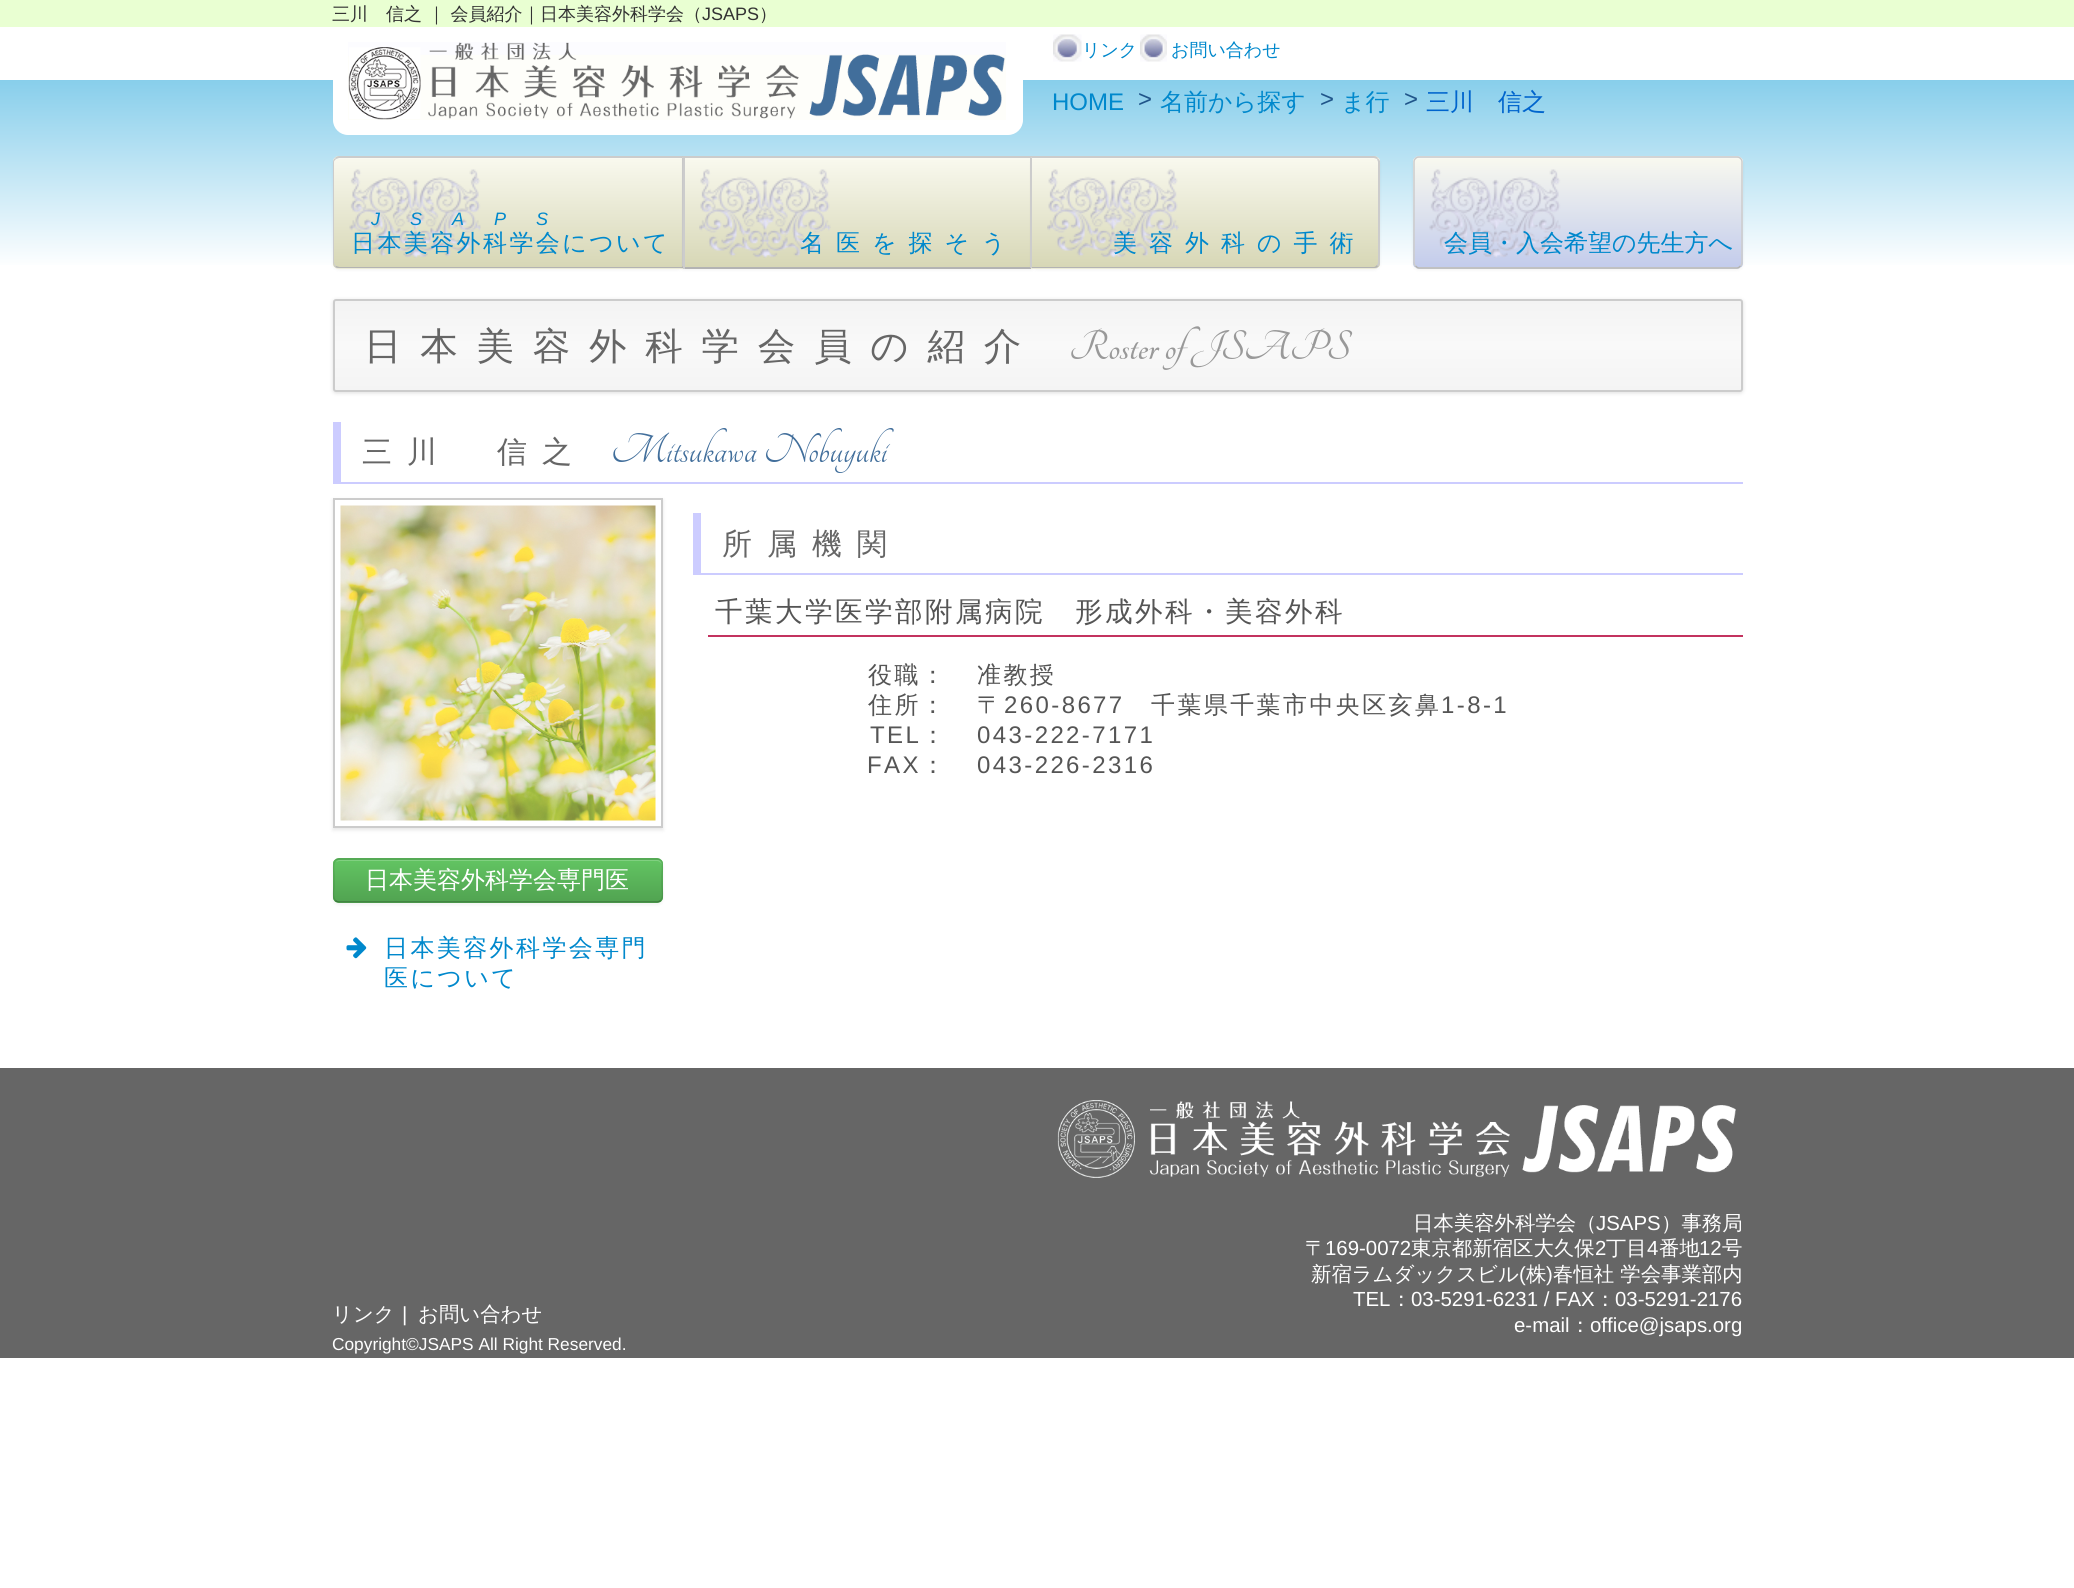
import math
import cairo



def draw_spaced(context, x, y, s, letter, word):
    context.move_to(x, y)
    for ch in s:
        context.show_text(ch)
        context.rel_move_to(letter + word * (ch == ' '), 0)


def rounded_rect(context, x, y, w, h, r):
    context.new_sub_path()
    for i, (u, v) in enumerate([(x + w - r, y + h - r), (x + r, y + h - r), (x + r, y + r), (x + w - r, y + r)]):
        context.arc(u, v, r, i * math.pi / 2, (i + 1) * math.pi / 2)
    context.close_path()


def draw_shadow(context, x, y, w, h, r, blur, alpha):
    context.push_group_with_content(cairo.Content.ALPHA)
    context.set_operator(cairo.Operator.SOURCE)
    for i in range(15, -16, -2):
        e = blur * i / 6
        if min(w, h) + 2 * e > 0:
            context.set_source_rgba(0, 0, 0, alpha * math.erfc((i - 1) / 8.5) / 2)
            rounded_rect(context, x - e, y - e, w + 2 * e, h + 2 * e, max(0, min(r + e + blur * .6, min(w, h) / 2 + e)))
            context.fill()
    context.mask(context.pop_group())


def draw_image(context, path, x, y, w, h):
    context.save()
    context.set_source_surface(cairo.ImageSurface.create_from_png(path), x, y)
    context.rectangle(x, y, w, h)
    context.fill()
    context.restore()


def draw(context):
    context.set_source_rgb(1, 1, 1)
    context.paint()
    context.set_source_rgb(233 / 255, 1, 210 / 255)
    context.rectangle(0, 0, 2074, 27)
    context.fill()
    gradient = cairo.LinearGradient(1037, 79, 1037, 269)
    gradient.add_color_stop_rgba(0, 135 / 255, 206 / 255, 235 / 255, 1)
    gradient.add_color_stop_rgba(1, 1, 1, 1, 1)
    context.set_source(gradient)
    context.rectangle(0, 80, 2074, 185)
    context.fill()
    context.set_source_rgb(1, 1, 1)
    rounded_rect(context, 333, 27, 690, 108, 15)
    context.fill()
    draw_image(context, "images/1.png", 348, 42, 658, 78)
    draw_image(context, "images/2.png", 1053, 34, 29, 28)
    draw_image(context, "images/3.png", 1140, 34, 27, 28)
    context.set_source_rgb(0, 0, 0)
    draw_shadow(context, 333, 158, 351, 112, 6, 1.5, 0.05)
    context.set_source_rgb(235 / 255, 235 / 255, 216 / 255)
    context.new_path()
    context.move_to(339, 156)
    context.line_to(684, 156)
    context.line_to(684, 269)
    context.line_to(339, 269)
    context.curve_to(335.5, 269, 333, 266.5, 333, 263)
    context.line_to(333, 162)
    context.curve_to(333, 158.5, 335.5, 156, 339, 156)
    context.close_path()
    context.fill()
    context.save()
    context.new_path()
    context.move_to(339, 156)
    context.line_to(684, 156)
    context.line_to(684, 269)
    context.line_to(339, 269)
    context.curve_to(335.5, 269, 333, 266.5, 333, 263)
    context.line_to(333, 162)
    context.curve_to(333, 158.5, 335.5, 156, 339, 156)
    context.close_path()
    context.clip()
    gradient = cairo.LinearGradient(509, 157, 509, 267)
    gradient.add_color_stop_rgba(0, 249 / 255, 249 / 255, 239 / 255, 1)
    gradient.add_color_stop_rgba(1, 215 / 255, 215 / 255, 182 / 255, 1)
    context.set_source(gradient)
    context.rectangle(333, 158, 350, 109)
    context.fill()
    context.restore()
    context.set_source_rgba(1, 1, 1, 0.2)
    context.new_path()
    context.move_to(339, 159)
    context.line_to(682, 159)
    context.line_to(682, 267)
    context.line_to(683, 267)
    context.line_to(683, 158)
    context.line_to(340, 158)
    context.curve_to(338, 158, 337, 159, 336, 160)
    context.close_path()
    context.fill()
    context.set_source_rgb(204 / 255, 204 / 255, 204 / 255)
    context.new_path()
    context.move_to(339, 156)
    context.curve_to(338, 156, 336, 157, 335, 158)
    context.line_to(336, 159)
    context.line_to(339, 158)
    context.line_to(682, 158)
    context.line_to(684, 156)
    context.close_path()
    context.fill()
    context.new_path()
    context.move_to(684, 156)
    context.line_to(682, 158)
    context.line_to(682, 266)
    context.line_to(684, 268)
    context.close_path()
    context.fill()
    context.set_source_rgb(179 / 255, 179 / 255, 179 / 255)
    context.new_path()
    context.move_to(684, 268)
    context.line_to(339, 268)
    context.curve_to(338, 268, 336, 268, 335, 267)
    context.line_to(336, 266)
    context.line_to(339, 267)
    context.line_to(682, 267)
    context.line_to(682, 266)
    context.close_path()
    context.fill()
    context.set_source_rgb(204 / 255, 204 / 255, 204 / 255)
    context.new_path()
    context.move_to(333, 162)
    context.line_to(333, 263)
    context.line_to(335, 267)
    context.line_to(336, 266)
    context.curve_to(335, 265, 334, 264, 334, 262)
    context.line_to(334, 162)
    context.curve_to(334, 161, 335, 160, 336, 159)
    context.line_to(335, 158)
    context.curve_to(334, 159, 333, 160, 333, 162)
    context.close_path()
    context.fill()
    draw_image(context, "images/4.png", 349, 169, 132, 89)
    context.set_source_rgb(0, 0, 0)
    draw_shadow(context, 683, 158, 349, 112, 0, 1.5, 0.05)
    gradient = cairo.LinearGradient(857, 157, 857, 267)
    gradient.add_color_stop_rgba(0, 249 / 255, 249 / 255, 239 / 255, 1)
    gradient.add_color_stop_rgba(1, 215 / 255, 215 / 255, 182 / 255, 1)
    context.set_source(gradient)
    context.rectangle(685, 160, 345, 107)
    context.fill()
    context.set_source_rgb(250 / 255, 250 / 255, 241 / 255)
    context.rectangle(684, 158, 347, 2)
    context.fill()
    context.set_source_rgb(204 / 255, 204 / 255, 204 / 255)
    context.rectangle(683, 156, 349, 2)
    context.fill()
    context.set_source_rgb(179 / 255, 179 / 255, 179 / 255)
    context.rectangle(683, 267, 349, 2)
    context.fill()
    context.set_source_rgb(204 / 255, 204 / 255, 204 / 255)
    context.rectangle(683, 156, 2, 113)
    context.fill()
    draw_image(context, "images/5.png", 699, 169, 132, 89)
    context.set_source_rgb(0, 0, 0)
    draw_shadow(context, 1031, 158, 349, 112, 6, 1.5, 0.05)
    context.set_source_rgb(235 / 255, 235 / 255, 216 / 255)
    context.new_path()
    context.move_to(1031, 156)
    context.line_to(1374, 156)
    context.curve_to(1377.5, 156, 1380, 158.5, 1380, 162)
    context.line_to(1380, 263)
    context.curve_to(1380, 266.5, 1377.5, 269, 1374, 269)
    context.line_to(1031, 269)
    context.close_path()
    context.fill()
    context.save()
    context.new_path()
    context.move_to(1031, 156)
    context.line_to(1374, 156)
    context.curve_to(1377.5, 156, 1380, 158.5, 1380, 162)
    context.line_to(1380, 263)
    context.curve_to(1380, 266.5, 1377.5, 269, 1374, 269)
    context.line_to(1031, 269)
    context.close_path()
    context.clip()
    gradient = cairo.LinearGradient(1205, 157, 1205, 267)
    gradient.add_color_stop_rgba(0, 249 / 255, 249 / 255, 239 / 255, 1)
    gradient.add_color_stop_rgba(1, 215 / 255, 215 / 255, 182 / 255, 1)
    context.set_source(gradient)
    context.rectangle(1032, 158, 348, 109)
    context.fill()
    context.restore()
    context.set_source_rgba(1, 1, 1, 0.2)
    context.new_path()
    context.move_to(1032, 159)
    context.line_to(1374, 159)
    context.curve_to(1376, 159, 1378, 161, 1378, 164)
    context.line_to(1378, 265)
    context.curve_to(1379, 264, 1379, 263, 1379, 262)
    context.line_to(1379, 163)
    context.curve_to(1379, 160, 1377, 158, 1374, 158)
    context.line_to(1032, 158)
    context.close_path()
    context.fill()
    context.set_source_rgb(204 / 255, 204 / 255, 204 / 255)
    context.new_path()
    context.move_to(1030, 156)
    context.line_to(1032, 158)
    context.line_to(1374, 158)
    context.line_to(1377, 159)
    context.line_to(1378, 158)
    context.curve_to(1377, 157, 1376, 156, 1374, 156)
    context.close_path()
    context.fill()
    context.new_path()
    context.move_to(1380, 262)
    context.line_to(1380, 161)
    context.line_to(1378, 158)
    context.line_to(1377, 159)
    context.line_to(1378, 162)
    context.line_to(1378, 263)
    context.line_to(1377, 265)
    context.line_to(1378, 267)
    context.curve_to(1379, 266, 1380, 264, 1380, 262)
    context.close_path()
    context.fill()
    context.set_source_rgb(179 / 255, 179 / 255, 179 / 255)
    context.new_path()
    context.move_to(1378, 267)
    context.curve_to(1377, 268, 1375, 268, 1374, 268)
    context.line_to(1031, 268)
    context.line_to(1032, 267)
    context.line_to(1374, 267)
    context.curve_to(1375, 267, 1376, 266, 1377, 265)
    context.close_path()
    context.fill()
    context.set_source_rgb(204 / 255, 204 / 255, 204 / 255)
    context.new_path()
    context.move_to(1032, 158)
    context.line_to(1032, 267)
    context.line_to(1030, 268)
    context.line_to(1030, 156)
    context.close_path()
    context.fill()
    draw_image(context, "images/6.png", 1047, 169, 132, 89)
    context.set_source_rgb(0, 0, 0)
    draw_shadow(context, 1413, 158, 330, 112, 6, 1.5, 0.05)
    context.set_source_rgb(227 / 255, 231 / 255, 238 / 255)
    rounded_rect(context, 1413, 156, 330, 113, 6)
    context.fill()
    context.save()
    rounded_rect(context, 1413, 156, 330, 113, 6)
    context.clip()
    gradient = cairo.LinearGradient(1578, 157, 1578, 267)
    gradient.add_color_stop_rgba(0, 249 / 255, 249 / 255, 239 / 255, 1)
    gradient.add_color_stop_rgba(1, 195 / 255, 204 / 255, 236 / 255, 1)
    context.set_source(gradient)
    context.rectangle(1413, 158, 330, 109)
    context.fill()
    context.restore()
    context.set_source_rgb(249 / 255, 249 / 255, 242 / 255)
    context.new_path()
    context.move_to(1419, 159)
    context.line_to(1737, 159)
    context.curve_to(1739, 159, 1742, 161, 1742, 164)
    context.line_to(1742, 163)
    context.curve_to(1742, 160, 1740, 158, 1737, 158)
    context.line_to(1420, 158)
    context.curve_to(1418, 158, 1417, 159, 1416, 160)
    context.close_path()
    context.fill()
    context.new_path()
    context.move_to(1740.5, 266)
    context.curve_to(1739.5, 267, 1738.5, 268, 1737, 268)
    context.line_to(1419, 268)
    context.curve_to(1417.5, 268, 1416.5, 267, 1415.5, 266)
    context.set_source_rgb(179 / 255, 179 / 255, 179 / 255)
    context.set_line_width(1.5)
    context.stroke()
    context.new_path()
    context.move_to(1415.5, 266)
    context.curve_to(1414.5, 265, 1414, 264, 1414, 262.5)
    context.line_to(1414, 162)
    context.curve_to(1414, 160.5, 1414.5, 159.5, 1415.5, 158.5)
    context.curve_to(1416.5, 157.5, 1417.5, 157, 1419, 157)
    context.line_to(1737, 157)
    context.curve_to(1738.5, 157, 1739.5, 157.5, 1740.5, 158.5)
    context.curve_to(1741.5, 159.5, 1742, 160.5, 1742, 162)
    context.line_to(1742, 262.5)
    context.curve_to(1742, 264, 1741.5, 265, 1740.5, 266)
    context.set_source_rgb(204 / 255, 204 / 255, 204 / 255)
    context.stroke()
    draw_image(context, "images/7.png", 1429, 169, 132, 89)
    context.set_source_rgb(222 / 255, 222 / 255, 222 / 255)
    draw_shadow(context, 333, 300, 1410, 93, 3, 2, 1)
    gradient = cairo.LinearGradient(1038, 300, 1038, 390)
    gradient.add_color_stop_rgba(0, 243 / 255, 243 / 255, 243 / 255, 1)
    gradient.add_color_stop_rgba(0.5, 249 / 255, 249 / 255, 249 / 255, 1)
    gradient.add_color_stop_rgba(1, 244 / 255, 244 / 255, 244 / 255, 1)
    context.set_source(gradient)
    context.rectangle(335, 301, 1406, 89)
    context.fill()
    rounded_rect(context, 334, 300, 1408, 91, 2)
    context.set_source_rgb(204 / 255, 204 / 255, 204 / 255)
    context.set_line_width(2)
    context.stroke()
    context.set_source_rgb(204 / 255, 204 / 255, 1)
    context.rectangle(333, 482, 1410, 2)
    context.fill()
    context.rectangle(333, 422, 8, 61)
    context.fill()
    context.rectangle(693, 573, 1050, 2)
    context.fill()
    context.rectangle(693, 513, 8, 62)
    context.fill()
    context.set_source_rgb(195 / 255, 50 / 255, 95 / 255)
    context.rectangle(708, 635, 1035, 2)
    context.fill()
    context.save()
    context.set_fill_rule(cairo.FillRule.EVEN_ODD)
    context.new_path()
    context.move_to(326, 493)
    context.line_to(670, 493)
    context.line_to(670, 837)
    context.line_to(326, 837)
    context.close_path()
    context.move_to(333, 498)
    context.line_to(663, 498)
    context.line_to(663, 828)
    context.line_to(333, 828)
    context.close_path()
    context.clip()
    context.set_source_rgb(0, 0, 0)
    draw_shadow(context, 333, 500, 330, 330, 0, 2, 0.1)
    context.restore()
    context.rectangle(334, 499, 328, 328)
    context.set_source_rgb(204 / 255, 204 / 255, 204 / 255)
    context.stroke()
    draw_image(context, "images/8.png", 340, 505, 316, 316)
    context.set_source_rgb(0, 0, 0)
    draw_shadow(context, 333, 860, 330, 45, 6, 1.5, 0.05)
    context.set_source_rgb(91 / 255, 183 / 255, 91 / 255)
    rounded_rect(context, 333, 858, 330, 45, 6)
    context.fill()
    context.save()
    rounded_rect(context, 333, 858, 330, 45, 6)
    context.clip()
    gradient = cairo.LinearGradient(498, 860, 498, 902)
    gradient.add_color_stop_rgba(0, 98 / 255, 196 / 255, 98 / 255, 1)
    gradient.add_color_stop_rgba(1, 81 / 255, 163 / 255, 81 / 255, 1)
    context.set_source(gradient)
    context.rectangle(333, 860, 330, 42)
    context.fill()
    context.restore()
    context.set_source_rgba(1, 1, 1, 0.2)
    context.new_path()
    context.move_to(339, 861)
    context.line_to(657, 861)
    context.curve_to(659, 861, 662, 863, 662, 866)
    context.line_to(662, 865)
    context.curve_to(662, 862, 660, 860, 657, 860)
    context.line_to(340, 860)
    context.curve_to(338, 860, 337, 861, 336, 862)
    context.close_path()
    context.fill()
    context.new_path()
    context.move_to(660.5, 900.5)
    context.curve_to(659.5, 901.5, 658.5, 902, 657, 902)
    context.line_to(339, 902)
    context.curve_to(337.5, 902, 336.5, 901.5, 335.5, 900.5)
    context.set_source_rgba(0, 0, 0, 0.25)
    context.set_line_width(1.5)
    context.stroke()
    context.new_path()
    context.move_to(335.5, 900.5)
    context.curve_to(332, 897.5, 334, 889.5, 334, 886)
    context.line_to(334, 875)
    context.curve_to(334, 871, 331.5, 859, 339, 859)
    context.line_to(657, 859)
    context.curve_to(664.5, 859, 662, 871, 662, 875)
    context.line_to(662, 886)
    context.curve_to(662, 889.5, 664, 897.5, 660.5, 900.5)
    context.set_source_rgba(0, 0, 0, 0.1)
    context.stroke()
    draw_image(context, "images/9.png", 346, 937, 21, 22)
    context.set_source_rgb(102 / 255, 102 / 255, 102 / 255)
    context.rectangle(0, 1068, 2074, 290)
    context.fill()
    draw_image(context, "images/10.png", 1057, 1100, 679, 78)
    context.select_font_face("WenQuanYi Zen Hei Medium")
    context.set_font_size(18)
    context.set_source_rgb(51 / 255, 51 / 255, 51 / 255)
    context.move_to(332, 20)
    context.show_text("三川　信之 ｜ 会員紹介｜日本美容外科学会（")
    context.select_font_face("Liberation Sans")
    context.move_to(702, 20)
    context.show_text("JSAPS")
    context.select_font_face("WenQuanYi Zen Hei Medium")
    context.move_to(759, 20)
    context.show_text("）")
    context.set_source_rgb(0, 136 / 255, 204 / 255)
    context.move_to(1082, 56)
    context.show_text("リンク")
    context.move_to(1171, 56)
    context.show_text("お問い合わせ")
    context.select_font_face("Liberation Sans")
    context.set_font_size(24)
    context.move_to(1052, 110)
    context.show_text("HOME")
    context.set_source_rgb(32 / 255, 85 / 255, 138 / 255)
    context.move_to(1138, 107)
    context.show_text(">")
    context.select_font_face("WenQuanYi Zen Hei Medium")
    context.set_source_rgb(0, 136 / 255, 204 / 255)
    context.move_to(1160, 110)
    context.show_text("名前から探す")
    context.select_font_face("Liberation Sans")
    context.set_source_rgb(32 / 255, 85 / 255, 138 / 255)
    context.move_to(1320, 107)
    context.show_text(">")
    context.select_font_face("WenQuanYi Zen Hei Medium")
    context.set_source_rgb(0, 136 / 255, 204 / 255)
    context.move_to(1341, 110)
    context.show_text("ま行")
    context.select_font_face("Liberation Sans")
    context.set_source_rgb(32 / 255, 85 / 255, 138 / 255)
    context.move_to(1404, 107)
    context.show_text(">")
    context.select_font_face("WenQuanYi Zen Hei Medium")
    context.set_source_rgb(0, 100 / 255, 205 / 255)
    context.move_to(1426, 110)
    context.show_text("三川　信之")
    context.select_font_face("Liberation Sans", cairo.FontSlant.ITALIC)
    context.set_font_size(18)
    context.set_source_rgb(0, 136 / 255, 204 / 255)
    draw_spaced(context, 371, 225, "JSAPS", 30, 0)
    context.select_font_face("WenQuanYi Zen Hei Medium")
    context.set_font_size(24)
    draw_spaced(context, 351, 251, "日本美容外科学会について", 2.4, 0)
    draw_spaced(context, 800, 251, "名医を探そう", 12, 0)
    draw_spaced(context, 1113, 251, "美容外科の手術", 12, 0)
    context.move_to(1444, 251)
    context.show_text("会員・入会希望の先生方へ")
    context.set_font_size(37.5)
    context.set_source_rgb(102 / 255, 102 / 255, 102 / 255)
    draw_spaced(context, 364, 359, "日本美容外科学会員の紹介", 18.75, 0)
    context.select_font_face("Tangerine", cairo.FontSlant.NORMAL, cairo.FontWeight.BOLD)
    context.set_font_size(45)
    context.set_source_rgb(153 / 255, 153 / 255, 153 / 255)
    context.move_to(1069, 359)
    context.show_text("Roster of JSAPS")
    context.select_font_face("WenQuanYi Zen Hei Medium")
    context.set_font_size(30)
    context.set_source_rgb(102 / 255, 102 / 255, 102 / 255)
    draw_spaced(context, 362, 462, "三川　信之", 15, 0)
    context.select_font_face("Tangerine")
    context.set_font_size(45)
    context.set_source_rgb(65 / 255, 110 / 255, 155 / 255)
    context.move_to(611, 462)
    context.show_text("Mitsukawa Nobuyuki")
    context.select_font_face("WenQuanYi Zen Hei Medium")
    context.set_font_size(30)
    context.set_source_rgb(102 / 255, 102 / 255, 102 / 255)
    draw_spaced(context, 722, 554, "所属機関", 15, 0)
    context.set_font_size(27.6)
    context.set_source_rgb(85 / 255, 85 / 255, 85 / 255)
    draw_spaced(context, 715, 621, "千葉大学医学部附属病院　形成外科・美容外科", 2.4, 0)
    context.set_font_size(24)
    draw_spaced(context, 868, 683, "役職：", 2.4, 0)
    draw_spaced(context, 977, 683, "准教授", 2.4, 0)
    draw_spaced(context, 868, 713, "住所：", 2.4, 0)
    draw_spaced(context, 977, 713, "〒", 2.4, 0)
    context.select_font_face("Liberation Sans")
    draw_spaced(context, 1004, 713, "260-8677", 2.4, 0)
    context.select_font_face("WenQuanYi Zen Hei Medium")
    draw_spaced(context, 1151, 713, "千葉県千葉市中央区亥鼻", 2.4, 0)
    context.select_font_face("Liberation Sans")
    draw_spaced(context, 1441, 713, "1-8-1", 2.4, 0)
    draw_spaced(context, 870, 743, "TEL", 2.4, 0)
    context.select_font_face("WenQuanYi Zen Hei Medium")
    draw_spaced(context, 921, 743, "：", 2.4, 0)
    context.select_font_face("Liberation Sans")
    draw_spaced(context, 977, 743, "043-222-7171", 2.4, 0)
    draw_spaced(context, 867, 773, "FAX", 2.4, 0)
    context.select_font_face("WenQuanYi Zen Hei Medium")
    draw_spaced(context, 921, 773, "：", 2.4, 0)
    context.select_font_face("Liberation Sans")
    draw_spaced(context, 977, 773, "043-226-2316", 2.4, 0)
    context.select_font_face("WenQuanYi Zen Hei Medium")
    context.set_source_rgb(1, 1, 1)
    context.move_to(365, 888)
    context.show_text("日本美容外科学会専門医")
    context.set_source_rgb(0, 136 / 255, 204 / 255)
    draw_spaced(context, 384, 956, "日本美容外科学会専門", 2.4, 0)
    draw_spaced(context, 384, 986, "医について", 2.4, 0)
    context.set_font_size(20.4)
    context.set_source_rgb(1, 1, 1)
    context.move_to(332, 1321)
    context.show_text("リンク")
    context.select_font_face("Liberation Sans")
    context.move_to(402, 1321)
    context.show_text("|")
    context.select_font_face("WenQuanYi Zen Hei Medium")
    context.move_to(418, 1321)
    context.show_text("お問い合わせ")
    context.select_font_face("Liberation Sans")
    context.set_font_size(17.3)
    context.move_to(332, 1350)
    context.show_text("Copyright©JSAPS All Right Reserved.")
    context.select_font_face("WenQuanYi Zen Hei Medium")
    context.set_font_size(20.4)
    context.move_to(1413, 1230)
    context.show_text("日本美容外科学会（")
    context.select_font_face("Liberation Sans")
    context.move_to(1596, 1230)
    context.show_text("JSAPS")
    context.select_font_face("WenQuanYi Zen Hei Medium")
    context.move_to(1661, 1230)
    context.show_text("）事務局")
    context.move_to(1305, 1255)
    context.show_text("〒")
    context.select_font_face("Liberation Sans")
    context.move_to(1325, 1255)
    context.show_text("169-0072")
    context.select_font_face("WenQuanYi Zen Hei Medium")
    context.move_to(1411, 1255)
    context.show_text("東京都新宿区大久保")
    context.select_font_face("Liberation Sans")
    context.move_to(1595, 1255)
    context.show_text("2")
    context.select_font_face("WenQuanYi Zen Hei Medium")
    context.move_to(1606, 1255)
    context.show_text("丁目")
    context.select_font_face("Liberation Sans")
    context.move_to(1647, 1255)
    context.show_text("4")
    context.select_font_face("WenQuanYi Zen Hei Medium")
    context.move_to(1659, 1255)
    context.show_text("番地")
    context.select_font_face("Liberation Sans")
    context.move_to(1699, 1255)
    context.show_text("12")
    context.select_font_face("WenQuanYi Zen Hei Medium")
    context.move_to(1722, 1255)
    context.show_text("号")
    context.move_to(1311, 1281)
    context.show_text("新宿ラムダックスビル")
    context.select_font_face("Liberation Sans")
    context.move_to(1519, 1281)
    context.show_text("(")
    context.select_font_face("WenQuanYi Zen Hei Medium")
    context.move_to(1526, 1281)
    context.show_text("株")
    context.select_font_face("Liberation Sans")
    context.move_to(1546, 1281)
    context.show_text(")")
    context.select_font_face("WenQuanYi Zen Hei Medium")
    context.move_to(1553, 1281)
    context.show_text("春恒社 学会事業部内")
    context.select_font_face("Liberation Sans")
    context.move_to(1353, 1306)
    context.show_text("TEL")
    context.select_font_face("WenQuanYi Zen Hei Medium")
    context.move_to(1391, 1306)
    context.show_text("：")
    context.select_font_face("Liberation Sans")
    context.move_to(1411, 1306)
    context.show_text("03-5291-6231 / FAX")
    context.select_font_face("WenQuanYi Zen Hei Medium")
    context.move_to(1595, 1306)
    context.show_text("：")
    context.select_font_face("Liberation Sans")
    context.move_to(1615, 1306)
    context.show_text("03-5291-2176")
    context.move_to(1514, 1332)
    context.show_text("e-mail")
    context.select_font_face("WenQuanYi Zen Hei Medium")
    context.move_to(1570, 1332)
    context.show_text("：")
    context.select_font_face("Liberation Sans")
    context.move_to(1590, 1332)
    context.show_text("office@jsaps.org")


surface = cairo.ImageSurface(cairo.Format.RGB24, 2074, 1588)
context = cairo.Context(surface)
options = cairo.FontOptions()
options.set_hint_metrics(cairo.HintMetrics.OFF)
options.set_hint_style(cairo.HintStyle.NONE)
context.set_font_options(options)
context.set_miter_limit(4)
draw(context)
surface.write_to_png("out.png")
